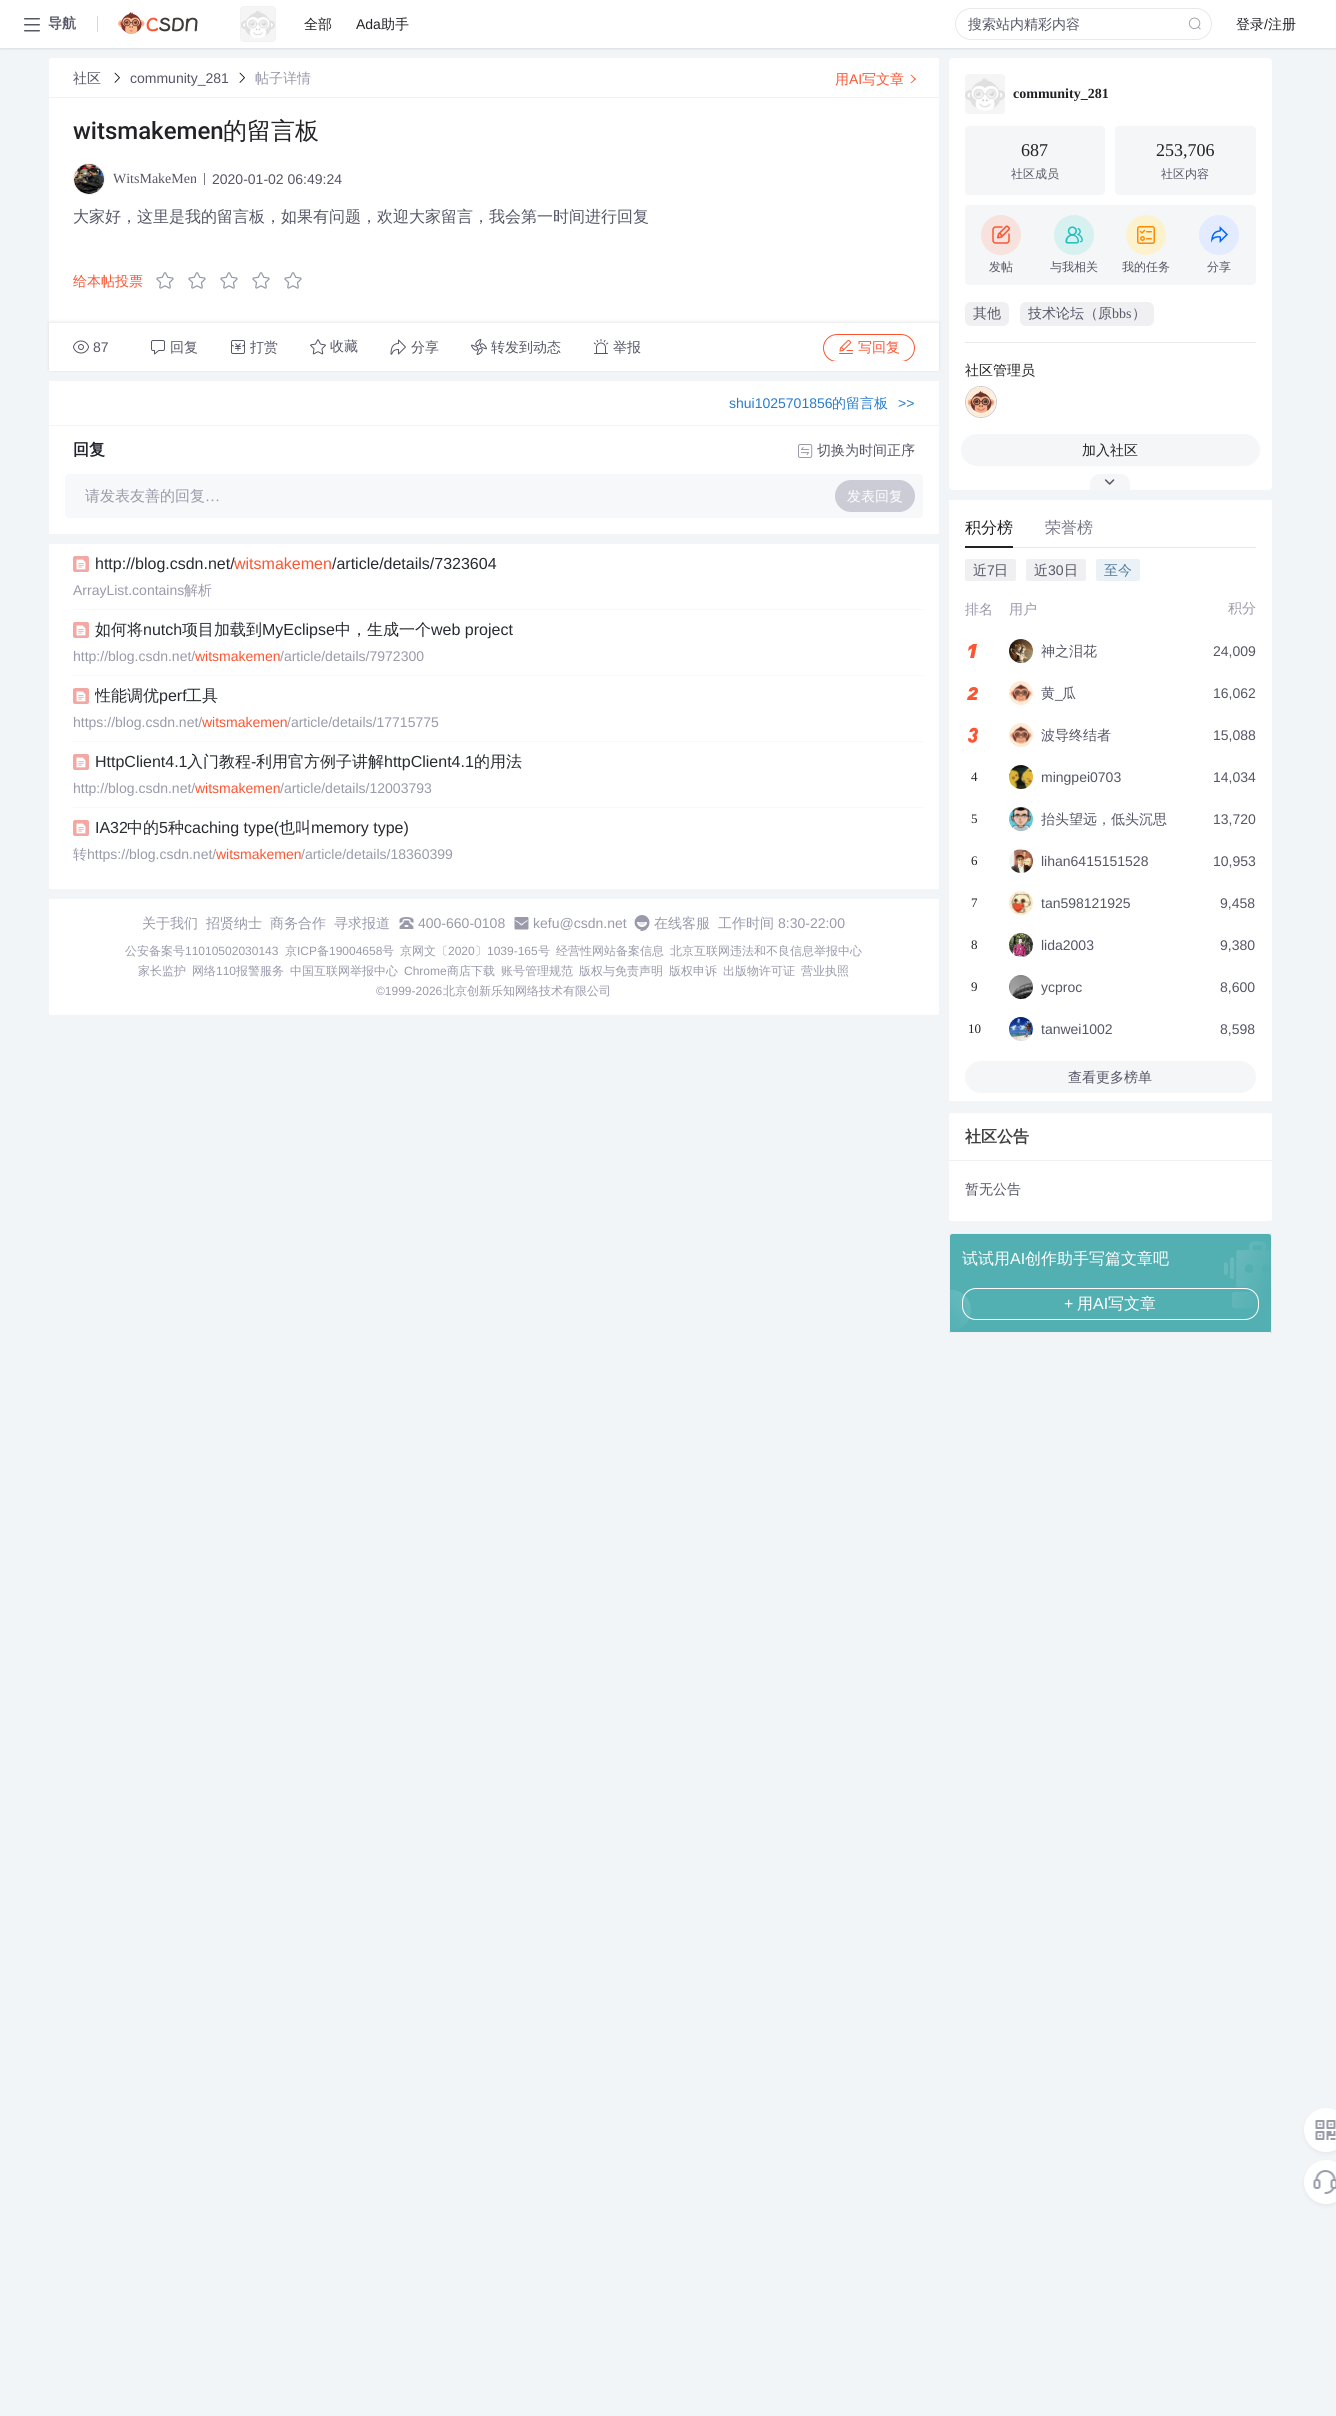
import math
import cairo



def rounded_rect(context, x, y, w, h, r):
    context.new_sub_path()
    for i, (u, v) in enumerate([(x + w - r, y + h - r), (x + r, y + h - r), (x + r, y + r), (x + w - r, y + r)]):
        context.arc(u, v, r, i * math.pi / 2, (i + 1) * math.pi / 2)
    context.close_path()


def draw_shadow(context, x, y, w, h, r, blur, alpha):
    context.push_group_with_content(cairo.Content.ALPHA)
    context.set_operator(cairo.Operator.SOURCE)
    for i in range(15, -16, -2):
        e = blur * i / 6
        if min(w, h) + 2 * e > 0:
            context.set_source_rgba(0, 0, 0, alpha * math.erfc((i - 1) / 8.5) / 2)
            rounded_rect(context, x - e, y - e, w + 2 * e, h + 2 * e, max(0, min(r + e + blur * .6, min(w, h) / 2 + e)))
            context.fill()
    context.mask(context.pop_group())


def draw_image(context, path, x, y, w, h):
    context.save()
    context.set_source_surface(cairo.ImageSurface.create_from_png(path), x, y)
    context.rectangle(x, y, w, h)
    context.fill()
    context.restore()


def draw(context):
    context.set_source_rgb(242 / 255, 245 / 255, 247 / 255)
    context.paint()
    context.set_source_rgb(0, 0, 0)
    draw_shadow(context, 0, 1, 1336, 48, 0, 1, 0.1)
    context.set_source_rgb(1, 1, 1)
    context.rectangle(0, 0, 1336, 48)
    context.fill()
    draw_image(context, "images/1.png", 24, 18, 16, 14)
    context.set_source_rgb(216 / 255, 216 / 255, 216 / 255)
    rounded_rect(context, 97, 16, 1, 16, 0.5)
    context.fill()
    draw_image(context, "images/2.png", 118, 12, 80, 22)
    rounded_rect(context, 240.5, 6.5, 35, 35, 3.5)
    context.set_source_rgb(242 / 255, 242 / 255, 242 / 255)
    context.set_line_width(1)
    context.stroke()
    draw_image(context, "images/3.png", 241, 7, 34, 34)
    rounded_rect(context, 955.5, 8.5, 256, 31, 15.5)
    context.set_source_rgb(232 / 255, 232 / 255, 237 / 255)
    context.stroke()
    context.save()
    rounded_rect(context, 956, 9, 255, 30, 15)
    context.clip()
    context.set_source_rgb(1, 1, 1)
    context.rectangle(968, 9, 217, 30)
    context.fill()
    context.restore()
    draw_image(context, "images/4.png", 1188, 17, 13, 13)
    context.set_source_rgb(1, 1, 1)
    context.new_path()
    context.move_to(51, 58)
    context.line_to(937, 58)
    context.curve_to(938, 58, 939, 59, 939, 60)
    context.line_to(939, 98)
    context.line_to(49, 98)
    context.line_to(49, 60)
    context.curve_to(49, 59, 50, 58, 51, 58)
    context.close_path()
    context.fill()
    context.set_source_rgb(242 / 255, 242 / 255, 242 / 255)
    context.rectangle(49, 97, 890, 1)
    context.fill()
    draw_image(context, "images/5.png", 114, 72, 6, 11)
    draw_image(context, "images/5.png", 239, 72, 6, 11)
    context.set_source_rgb(252 / 255, 85 / 255, 49 / 255)
    context.new_path()
    context.move_to(910.5, 75)
    context.line_to(911, 74.5)
    context.line_to(916, 79)
    context.line_to(915, 79.5)
    context.close_path()
    context.fill()
    context.new_path()
    context.move_to(910.5, 83)
    context.line_to(915, 78.5)
    context.line_to(916, 79)
    context.line_to(911, 83.5)
    context.close_path()
    context.fill()
    context.set_source_rgb(1, 1, 1)
    context.rectangle(49, 98, 890, 225)
    context.fill()
    context.arc(89, 179, 15.5, 0, 2 * math.pi)
    context.set_source_rgb(242 / 255, 242 / 255, 242 / 255)
    context.stroke()
    draw_image(context, "images/6.png", 74, 164, 30, 30)
    context.set_source_rgb(119 / 255, 120 / 255, 136 / 255)
    context.rectangle(204, 173, 1, 12)
    context.fill()
    draw_image(context, "images/7.png", 156, 272, 18, 17)
    draw_image(context, "images/7.png", 188, 272, 18, 17)
    draw_image(context, "images/7.png", 220, 272, 18, 17)
    draw_image(context, "images/7.png", 252, 272, 18, 17)
    draw_image(context, "images/7.png", 284, 272, 18, 17)
    context.set_source_rgb(18 / 255, 18 / 255, 18 / 255)
    draw_shadow(context, 49, 322, 890, 48, 0, 1.5, 0.1)
    context.set_source_rgb(1, 1, 1)
    context.rectangle(49, 323, 890, 48)
    context.fill()
    draw_image(context, "images/8.png", 73, 340, 16, 14)
    draw_image(context, "images/9.png", 151, 340, 14, 15)
    draw_image(context, "images/10.png", 231, 340, 14, 14)
    draw_image(context, "images/11.png", 310, 339, 16, 16)
    draw_image(context, "images/12.png", 390, 339, 16, 16)
    draw_image(context, "images/13.png", 471, 339, 16, 16)
    draw_image(context, "images/14.png", 593, 339, 16, 15)
    context.save()
    context.rectangle(49, 333, 890, 28)
    context.clip()
    rounded_rect(context, 823.5, 334.5, 91, 27, 13.5)
    context.set_source_rgb(252 / 255, 85 / 255, 49 / 255)
    context.stroke()
    context.restore()
    draw_image(context, "images/15.png", 839, 339, 14, 15)
    context.rectangle(49, 381, 890, 44)
    context.fill()
    context.rectangle(49, 426, 890, 108)
    context.fill()
    draw_image(context, "images/16.png", 798, 444, 15, 14)
    context.set_source_rgb(247 / 255, 248 / 255, 249 / 255)
    rounded_rect(context, 65, 474, 858, 44, 4)
    context.fill()
    context.set_source_rgb(204 / 255, 204 / 255, 215 / 255)
    rounded_rect(context, 835, 480, 80, 32, 16)
    context.fill()
    context.set_source_rgb(1, 1, 1)
    context.rectangle(49, 544, 890, 345)
    context.fill()
    context.set_source_rgb(247 / 255, 247 / 255, 252 / 255)
    context.rectangle(73, 609, 850, 1)
    context.fill()
    draw_image(context, "images/17.png", 73, 556, 16, 16)
    context.rectangle(73, 675, 850, 1)
    context.fill()
    draw_image(context, "images/17.png", 73, 622, 16, 16)
    context.rectangle(73, 741, 850, 1)
    context.fill()
    draw_image(context, "images/17.png", 73, 688, 16, 16)
    context.rectangle(73, 807, 850, 1)
    context.fill()
    draw_image(context, "images/17.png", 73, 754, 16, 16)
    draw_image(context, "images/17.png", 73, 820, 16, 16)
    context.set_source_rgb(1, 1, 1)
    context.new_path()
    context.move_to(49, 899)
    context.line_to(939, 899)
    context.line_to(939, 1013)
    context.curve_to(939, 1014, 938, 1015, 937, 1015)
    context.line_to(51, 1015)
    context.curve_to(50, 1015, 49, 1014, 49, 1013)
    context.close_path()
    context.fill()
    draw_image(context, "images/18.png", 399, 917, 15, 12)
    draw_image(context, "images/19.png", 514, 917, 15, 13)
    draw_image(context, "images/20.png", 634, 915, 16, 16)
    rounded_rect(context, 949, 58, 323, 432, 4)
    context.fill()
    draw_image(context, "images/21.png", 965, 74, 40, 40)
    context.set_source_rgb(245 / 255, 246 / 255, 247 / 255)
    rounded_rect(context, 965, 126, 140, 69, 4)
    context.fill()
    rounded_rect(context, 1115, 126, 141, 69, 4)
    context.fill()
    rounded_rect(context, 965, 205, 291, 80, 4)
    context.fill()
    context.set_source_rgb(247 / 255, 226 / 255, 221 / 255)
    context.arc(1001, 235, 20, 0, 2 * math.pi)
    context.fill()
    draw_image(context, "images/22.png", 992, 225, 19, 19)
    context.set_source_rgb(215 / 255, 241 / 255, 241 / 255)
    context.arc(1074, 235, 20, 0, 2 * math.pi)
    context.fill()
    draw_image(context, "images/23.png", 1065, 226, 18, 18)
    context.set_source_rgb(253 / 255, 242 / 255, 206 / 255)
    context.arc(1146, 235, 20, 0, 2 * math.pi)
    context.fill()
    draw_image(context, "images/24.png", 1137, 226, 18, 18)
    context.set_source_rgb(226 / 255, 235 / 255, 1)
    context.arc(1219, 235, 20, 0, 2 * math.pi)
    context.fill()
    draw_image(context, "images/25.png", 1211, 226, 17, 17)
    context.set_source_rgb(240 / 255, 240 / 255, 242 / 255)
    rounded_rect(context, 965, 302, 44, 24, 6)
    context.fill()
    rounded_rect(context, 1020, 302, 134, 24, 6)
    context.fill()
    context.set_source_rgb(232 / 255, 232 / 255, 237 / 255)
    context.rectangle(965, 342, 291, 1)
    context.fill()
    context.arc(981, 402, 15.5, 0, 2 * math.pi)
    context.set_source_rgb(204 / 255, 204 / 255, 216 / 255)
    context.stroke()
    draw_image(context, "images/26.png", 966, 387, 30, 30)
    context.set_source_rgb(245 / 255, 246 / 255, 247 / 255)
    rounded_rect(context, 961, 434, 299, 32, 16)
    context.fill()
    context.new_path()
    context.move_to(1100, 474)
    context.line_to(1120, 474)
    context.curve_to(1125.5, 474, 1130, 478.5, 1130, 484)
    context.line_to(1130, 490)
    context.line_to(1090, 490)
    context.line_to(1090, 484)
    context.curve_to(1090, 478.5, 1094.5, 474, 1100, 474)
    context.close_path()
    context.fill()
    draw_image(context, "images/27.png", 1104, 479, 11, 6)
    context.set_source_rgb(1, 1, 1)
    context.rectangle(949, 500, 323, 601)
    context.fill()
    context.set_source_rgb(34 / 255, 34 / 255, 38 / 255)
    context.rectangle(965, 546, 48, 2)
    context.fill()
    context.set_source_rgb(232 / 255, 232 / 255, 237 / 255)
    context.rectangle(1013, 547, 243, 1)
    context.fill()
    context.set_source_rgb(240 / 255, 240 / 255, 242 / 255)
    rounded_rect(context, 965, 559, 51, 22, 2)
    context.fill()
    rounded_rect(context, 1026, 559, 60, 22, 2)
    context.fill()
    context.set_source_rgb(235 / 255, 242 / 255, 247 / 255)
    rounded_rect(context, 1096, 559, 44, 22, 2)
    context.fill()
    draw_image(context, "images/28.png", 968, 644, 9, 14)
    draw_image(context, "images/29.png", 1009, 639, 24, 24)
    draw_image(context, "images/30.png", 967, 687, 11, 13)
    draw_image(context, "images/31.png", 1009, 681, 24, 24)
    draw_image(context, "images/32.png", 968, 727, 10, 16)
    draw_image(context, "images/31.png", 1009, 723, 24, 24)
    draw_image(context, "images/33.png", 1009, 765, 24, 24)
    draw_image(context, "images/34.png", 1009, 807, 24, 24)
    draw_image(context, "images/35.png", 1009, 849, 24, 24)
    draw_image(context, "images/36.png", 1009, 891, 24, 24)
    draw_image(context, "images/37.png", 1009, 933, 24, 24)
    draw_image(context, "images/38.png", 1009, 975, 24, 24)
    draw_image(context, "images/39.png", 1009, 1017, 24, 24)
    context.set_source_rgb(245 / 255, 246 / 255, 247 / 255)
    rounded_rect(context, 965, 1061, 291, 32, 16)
    context.fill()
    context.set_source_rgb(1, 1, 1)
    rounded_rect(context, 949, 1113, 323, 108, 2)
    context.fill()
    context.set_source_rgb(240 / 255, 240 / 255, 242 / 255)
    context.rectangle(949, 1160, 323, 1)
    context.fill()
    draw_image(context, "images/40.png", 949, 1233, 323, 100)
    rounded_rect(context, 949.5, 1233.5, 322, 99, 1.5)
    context.stroke()
    rounded_rect(context, 962.5, 1288.5, 296, 31, 13.5)
    context.set_source_rgb(1, 1, 1)
    context.stroke()
    context.set_source_rgb(0, 0, 0)
    draw_shadow(context, 1304, 2110, 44, 44, 22, 2, 0.05)
    context.set_source_rgb(1, 1, 1)
    context.arc(1326, 2130, 22, 0, 2 * math.pi)
    context.fill()
    draw_image(context, "images/41.png", 1315, 2120, 21, 20)
    context.set_source_rgb(0, 0, 0)
    draw_shadow(context, 1304, 2162, 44, 44, 22, 2, 0.05)
    context.set_source_rgb(1, 1, 1)
    context.arc(1326, 2182, 22, 0, 2 * math.pi)
    context.fill()
    draw_image(context, "images/42.png", 1313, 2170, 23, 24)
    context.select_font_face("WenQuanYi Zen Hei", cairo.FontSlant.NORMAL, cairo.FontWeight.BOLD)
    context.set_font_size(14)
    context.set_source_rgb(85 / 255, 86 / 255, 102 / 255)
    context.move_to(48, 28)
    context.show_text("导航")
    context.select_font_face("WenQuanYi Zen Hei Medium")
    context.set_source_rgb(34 / 255, 34 / 255, 38 / 255)
    context.move_to(304, 29)
    context.show_text("全部")
    context.select_font_face("Liberation Sans")
    context.move_to(356, 29)
    context.show_text("Ada")
    context.select_font_face("WenQuanYi Zen Hei Medium")
    context.move_to(381, 29)
    context.show_text("助手")
    context.set_source_rgb(85 / 255, 86 / 255, 102 / 255)
    context.move_to(968, 29)
    context.show_text("搜索站内精彩内容")
    context.set_source_rgb(34 / 255, 34 / 255, 38 / 255)
    context.move_to(1236, 29)
    context.show_text("登录")
    context.select_font_face("Liberation Sans")
    context.move_to(1264, 29)
    context.show_text("/")
    context.select_font_face("WenQuanYi Zen Hei Medium")
    context.move_to(1268, 29)
    context.show_text("注册")
    context.set_source_rgb(85 / 255, 86 / 255, 102 / 255)
    context.move_to(73, 83)
    context.show_text("社区")
    context.select_font_face("Liberation Sans")
    context.move_to(130, 83)
    context.show_text("community_281")
    context.select_font_face("WenQuanYi Zen Hei Medium")
    context.set_source_rgb(153 / 255, 154 / 255, 170 / 255)
    context.move_to(255, 83)
    context.show_text("帖子详情")
    context.set_source_rgb(252 / 255, 85 / 255, 51 / 255)
    context.move_to(835, 84)
    context.show_text("用")
    context.select_font_face("Liberation Sans")
    context.move_to(849, 84)
    context.show_text("AI")
    context.select_font_face("WenQuanYi Zen Hei Medium")
    context.move_to(862, 84)
    context.show_text("写文章")
    context.select_font_face("Roboto Medium")
    context.set_font_size(24)
    context.set_source_rgb(34 / 255, 34 / 255, 38 / 255)
    context.move_to(73, 139)
    context.show_text("witsmakemen")
    context.select_font_face("WenQuanYi Zen Hei Medium")
    context.move_to(223, 139)
    context.show_text("的留言板")
    context.save()
    context.rectangle(113, 163, 83, 32)
    context.clip()
    context.select_font_face("Liberation Serif")
    context.set_font_size(14)
    context.set_source_rgb(85 / 255, 86 / 255, 102 / 255)
    context.move_to(113, 183)
    context.show_text("WitsMakeMen")
    context.restore()
    context.select_font_face("Liberation Sans")
    context.set_font_size(14)
    context.set_source_rgb(85 / 255, 86 / 255, 102 / 255)
    context.move_to(212, 184)
    context.show_text("2020-01-02 06:49:24")
    context.select_font_face("WenQuanYi Zen Hei Medium")
    context.set_font_size(16)
    context.move_to(73, 222)
    context.show_text("大家好，这里是我的留言板，如果有问题，欢迎大家留言，我会第一时间进行回复")
    context.set_font_size(14)
    context.set_source_rgb(252 / 255, 85 / 255, 51 / 255)
    context.move_to(73, 286)
    context.show_text("给本帖投票")
    context.select_font_face("Liberation Sans")
    context.set_source_rgb(85 / 255, 86 / 255, 102 / 255)
    context.move_to(93, 352)
    context.show_text("87")
    context.select_font_face("WenQuanYi Zen Hei Medium")
    context.move_to(170, 352)
    context.show_text("回复")
    context.move_to(250, 352)
    context.show_text("打赏")
    context.move_to(330, 351)
    context.show_text("收藏")
    context.move_to(411, 352)
    context.show_text("分享")
    context.move_to(491, 352)
    context.show_text("转发到动态")
    context.move_to(613, 352)
    context.show_text("举报")
    context.set_source_rgb(252 / 255, 85 / 255, 51 / 255)
    context.move_to(858, 352)
    context.show_text("写回复")
    context.select_font_face("Liberation Sans")
    context.set_source_rgb(39 / 255, 124 / 255, 204 / 255)
    context.move_to(729, 408)
    context.show_text("shui1025701856")
    context.select_font_face("WenQuanYi Zen Hei Medium")
    context.move_to(832, 408)
    context.show_text("的留言板")
    context.select_font_face("Liberation Sans")
    context.move_to(898, 408)
    context.show_text(">>")
    context.select_font_face("WenQuanYi Zen Hei", cairo.FontSlant.NORMAL, cairo.FontWeight.BOLD)
    context.set_font_size(16)
    context.set_source_rgb(32 / 255, 35 / 255, 44 / 255)
    context.move_to(73, 455)
    context.show_text("回复")
    context.select_font_face("WenQuanYi Zen Hei Medium")
    context.set_font_size(14)
    context.set_source_rgb(85 / 255, 86 / 255, 102 / 255)
    context.move_to(817, 455)
    context.show_text("切换为时间正序")
    context.set_font_size(15)
    context.set_source_rgb(153 / 255, 154 / 255, 170 / 255)
    context.move_to(85, 501)
    context.show_text("请发表友善的回复")
    context.select_font_face("Liberation Serif")
    context.move_to(205, 501)
    context.show_text("…")
    context.select_font_face("WenQuanYi Zen Hei Medium")
    context.set_font_size(14)
    context.set_source_rgb(1, 1, 1)
    context.move_to(847, 501)
    context.show_text("发表回复")
    context.select_font_face("Liberation Sans")
    context.set_font_size(16)
    context.set_source_rgb(40 / 255, 43 / 255, 49 / 255)
    context.move_to(95, 569)
    context.show_text("http://blog.csdn.net/")
    context.set_source_rgb(252 / 255, 85 / 255, 51 / 255)
    context.move_to(234, 569)
    context.show_text("witsmakemen")
    context.set_source_rgb(40 / 255, 43 / 255, 49 / 255)
    context.move_to(332, 569)
    context.show_text("/article/details/7323604")
    context.set_font_size(14)
    context.set_source_rgb(153 / 255, 154 / 255, 170 / 255)
    context.move_to(73, 595)
    context.show_text("ArrayList.contains")
    context.select_font_face("WenQuanYi Zen Hei Medium")
    context.move_to(184, 595)
    context.show_text("解析")
    context.set_font_size(16)
    context.set_source_rgb(40 / 255, 43 / 255, 49 / 255)
    context.move_to(95, 635)
    context.show_text("如何将")
    context.select_font_face("Liberation Sans")
    context.move_to(143, 635)
    context.show_text("nutch")
    context.select_font_face("WenQuanYi Zen Hei Medium")
    context.move_to(182, 635)
    context.show_text("项目加载到")
    context.select_font_face("Liberation Sans")
    context.move_to(262, 635)
    context.show_text("MyEclipse")
    context.select_font_face("WenQuanYi Zen Hei Medium")
    context.move_to(335, 635)
    context.show_text("中，生成一个")
    context.select_font_face("Liberation Sans")
    context.move_to(431, 635)
    context.show_text("web project")
    context.set_font_size(14)
    context.set_source_rgb(153 / 255, 154 / 255, 170 / 255)
    context.move_to(73, 661)
    context.show_text("http://blog.csdn.net/")
    context.set_source_rgb(252 / 255, 85 / 255, 51 / 255)
    context.move_to(195, 661)
    context.show_text("witsmakemen")
    context.set_source_rgb(153 / 255, 154 / 255, 170 / 255)
    context.move_to(280, 661)
    context.show_text("/article/details/7972300")
    context.save()
    context.rectangle(95, 684, 123, 24)
    context.clip()
    context.select_font_face("WenQuanYi Zen Hei Medium")
    context.set_font_size(16)
    context.set_source_rgb(40 / 255, 43 / 255, 49 / 255)
    context.move_to(95, 701)
    context.show_text("性能调优")
    context.restore()
    context.set_font_size(16)
    context.set_source_rgb(40 / 255, 43 / 255, 49 / 255)
    context.move_to(159, 701)
    context.show_text("perf")
    context.select_font_face("WenQuanYi Zen Hei Medium")
    context.move_to(186, 701)
    context.show_text("工具")
    context.select_font_face("Liberation Sans")
    context.set_font_size(14)
    context.set_source_rgb(153 / 255, 154 / 255, 170 / 255)
    context.move_to(73, 727)
    context.show_text("https://blog.csdn.net/")
    context.set_source_rgb(252 / 255, 85 / 255, 51 / 255)
    context.move_to(202, 727)
    context.show_text("witsmakemen")
    context.set_source_rgb(153 / 255, 154 / 255, 170 / 255)
    context.move_to(287, 727)
    context.show_text("/article/details/17715775")
    context.set_font_size(16)
    context.set_source_rgb(40 / 255, 43 / 255, 49 / 255)
    context.move_to(95, 767)
    context.show_text("HttpClient4.1")
    context.select_font_face("WenQuanYi Zen Hei Medium")
    context.move_to(187, 767)
    context.show_text("入门教程")
    context.select_font_face("Liberation Sans")
    context.move_to(251, 767)
    context.show_text("-")
    context.select_font_face("WenQuanYi Zen Hei Medium")
    context.move_to(256, 767)
    context.show_text("利用官方例子讲解")
    context.select_font_face("Liberation Sans")
    context.move_to(384, 767)
    context.show_text("httpClient4.1")
    context.select_font_face("WenQuanYi Zen Hei Medium")
    context.move_to(474, 767)
    context.show_text("的用法")
    context.select_font_face("Liberation Sans")
    context.set_font_size(14)
    context.set_source_rgb(153 / 255, 154 / 255, 170 / 255)
    context.move_to(73, 793)
    context.show_text("http://blog.csdn.net/")
    context.set_source_rgb(252 / 255, 85 / 255, 51 / 255)
    context.move_to(195, 793)
    context.show_text("witsmakemen")
    context.set_source_rgb(153 / 255, 154 / 255, 170 / 255)
    context.move_to(280, 793)
    context.show_text("/article/details/12003793")
    context.set_font_size(16)
    context.set_source_rgb(40 / 255, 43 / 255, 49 / 255)
    context.move_to(95, 833)
    context.show_text("IA32")
    context.select_font_face("WenQuanYi Zen Hei Medium")
    context.move_to(127, 833)
    context.show_text("中的")
    context.select_font_face("Liberation Sans")
    context.move_to(159, 833)
    context.show_text("5")
    context.select_font_face("WenQuanYi Zen Hei Medium")
    context.move_to(168, 833)
    context.show_text("种")
    context.select_font_face("Liberation Sans")
    context.move_to(184, 833)
    context.show_text("caching type(")
    context.select_font_face("WenQuanYi Zen Hei Medium")
    context.move_to(279, 833)
    context.show_text("也叫")
    context.select_font_face("Liberation Sans")
    context.move_to(311, 833)
    context.show_text("memory type)")
    context.save()
    context.rectangle(73, 843, 850, 22)
    context.clip()
    context.select_font_face("WenQuanYi Zen Hei Medium")
    context.set_font_size(14)
    context.set_source_rgb(153 / 255, 154 / 255, 170 / 255)
    context.move_to(73, 859)
    context.show_text("转")
    context.restore()
    context.set_font_size(14)
    context.set_source_rgb(153 / 255, 154 / 255, 170 / 255)
    context.move_to(87, 859)
    context.show_text("https://blog.csdn.net/")
    context.set_source_rgb(252 / 255, 85 / 255, 51 / 255)
    context.move_to(216, 859)
    context.show_text("witsmakemen")
    context.set_source_rgb(153 / 255, 154 / 255, 170 / 255)
    context.move_to(301, 859)
    context.show_text("/article/details/18360399")
    context.select_font_face("WenQuanYi Zen Hei Medium")
    context.move_to(142, 928)
    context.show_text("关于我们")
    context.move_to(206, 928)
    context.show_text("招贤纳士")
    context.move_to(270, 928)
    context.show_text("商务合作")
    context.move_to(334, 928)
    context.show_text("寻求报道")
    context.select_font_face("Liberation Sans")
    context.move_to(418, 928)
    context.show_text("400-660-0108")
    context.move_to(533, 928)
    context.show_text("kefu@csdn.net")
    context.select_font_face("WenQuanYi Zen Hei Medium")
    context.move_to(654, 928)
    context.show_text("在线客服")
    context.move_to(718, 928)
    context.show_text("工作时间")
    context.select_font_face("Liberation Sans")
    context.move_to(778, 928)
    context.show_text("8:30-22:00")
    context.select_font_face("WenQuanYi Zen Hei Medium")
    context.set_font_size(12)
    context.move_to(125, 955)
    context.show_text("公安备案号")
    context.select_font_face("Liberation Sans")
    context.move_to(185, 955)
    context.show_text("11010502030143")
    context.select_font_face("WenQuanYi Zen Hei Medium")
    context.move_to(285, 955)
    context.show_text("京")
    context.select_font_face("Liberation Sans")
    context.move_to(297, 955)
    context.show_text("ICP")
    context.select_font_face("WenQuanYi Zen Hei Medium")
    context.move_to(317, 955)
    context.show_text("备")
    context.select_font_face("Liberation Sans")
    context.move_to(329, 955)
    context.show_text("19004658")
    context.select_font_face("WenQuanYi Zen Hei Medium")
    context.move_to(382, 955)
    context.show_text("号")
    context.move_to(400, 955)
    context.show_text("京网文〔")
    context.select_font_face("Liberation Sans")
    context.move_to(448, 955)
    context.show_text("2020")
    context.select_font_face("WenQuanYi Zen Hei Medium")
    context.move_to(475, 955)
    context.show_text("〕")
    context.select_font_face("Liberation Sans")
    context.move_to(487, 955)
    context.show_text("1039-165")
    context.select_font_face("WenQuanYi Zen Hei Medium")
    context.move_to(538, 955)
    context.show_text("号")
    context.move_to(556, 955)
    context.show_text("经营性网站备案信息")
    context.move_to(670, 955)
    context.show_text("北京互联网违法和不良信息举报中心")
    context.move_to(138, 975)
    context.show_text("家长监护")
    context.move_to(192, 975)
    context.show_text("网络")
    context.select_font_face("Liberation Sans")
    context.move_to(216, 975)
    context.show_text("110")
    context.select_font_face("WenQuanYi Zen Hei Medium")
    context.move_to(236, 975)
    context.show_text("报警服务")
    context.move_to(290, 975)
    context.show_text("中国互联网举报中心")
    context.select_font_face("Liberation Sans")
    context.move_to(404, 975)
    context.show_text("Chrome")
    context.select_font_face("WenQuanYi Zen Hei Medium")
    context.move_to(447, 975)
    context.show_text("商店下载")
    context.move_to(501, 975)
    context.show_text("账号管理规范")
    context.move_to(579, 975)
    context.show_text("版权与免责声明")
    context.move_to(669, 975)
    context.show_text("版权申诉")
    context.move_to(723, 975)
    context.show_text("出版物许可证")
    context.move_to(801, 975)
    context.show_text("营业执照")
    context.select_font_face("Liberation Sans")
    context.move_to(376, 995)
    context.show_text("©1999-2026")
    context.select_font_face("WenQuanYi Zen Hei Medium")
    context.move_to(443, 995)
    context.show_text("北京创新乐知网络技术有限公司")
    context.select_font_face("Liberation Serif", cairo.FontSlant.NORMAL, cairo.FontWeight.BOLD)
    context.set_font_size(14)
    context.set_source_rgb(34 / 255, 34 / 255, 38 / 255)
    context.move_to(1013, 98)
    context.show_text("community_281")
    context.select_font_face("Liberation Serif")
    context.set_font_size(18)
    context.move_to(1021, 156)
    context.show_text("687")
    context.select_font_face("WenQuanYi Zen Hei Medium")
    context.set_font_size(12)
    context.set_source_rgb(85 / 255, 86 / 255, 102 / 255)
    context.move_to(1011, 178)
    context.show_text("社区成员")
    context.select_font_face("Liberation Serif")
    context.set_font_size(18)
    context.set_source_rgb(34 / 255, 34 / 255, 38 / 255)
    context.move_to(1156, 156)
    context.show_text("253,706")
    context.select_font_face("WenQuanYi Zen Hei Medium")
    context.set_font_size(12)
    context.set_source_rgb(85 / 255, 86 / 255, 102 / 255)
    context.move_to(1161, 178)
    context.show_text("社区内容")
    context.move_to(989, 271)
    context.show_text("发帖")
    context.move_to(1050, 271)
    context.show_text("与我相关")
    context.move_to(1122, 271)
    context.show_text("我的任务")
    context.move_to(1207, 271)
    context.show_text("分享")
    context.set_font_size(14)
    context.move_to(973, 318)
    context.show_text("其他")
    context.move_to(1028, 318)
    context.show_text("技术论坛（原")
    context.select_font_face("Liberation Serif")
    context.move_to(1112, 318)
    context.show_text("bbs")
    context.select_font_face("WenQuanYi Zen Hei Medium")
    context.move_to(1132, 318)
    context.show_text("）")
    context.set_source_rgb(34 / 255, 34 / 255, 38 / 255)
    context.move_to(965, 375)
    context.show_text("社区管理员")
    context.move_to(1082, 455)
    context.show_text("加入社区")
    context.set_font_size(16)
    context.move_to(965, 533)
    context.show_text("积分榜")
    context.set_source_rgb(119 / 255, 120 / 255, 136 / 255)
    context.move_to(1045, 533)
    context.show_text("荣誉榜")
    context.set_font_size(14)
    context.set_source_rgb(85 / 255, 86 / 255, 102 / 255)
    context.move_to(973, 575)
    context.show_text("近")
    context.select_font_face("Liberation Sans")
    context.move_to(987, 575)
    context.show_text("7")
    context.select_font_face("WenQuanYi Zen Hei Medium")
    context.move_to(994, 575)
    context.show_text("日")
    context.move_to(1034, 575)
    context.show_text("近")
    context.select_font_face("Liberation Sans")
    context.move_to(1048, 575)
    context.show_text("30")
    context.select_font_face("WenQuanYi Zen Hei Medium")
    context.move_to(1064, 575)
    context.show_text("日")
    context.set_source_rgb(80 / 255, 121 / 255, 153 / 255)
    context.move_to(1104, 575)
    context.show_text("至今")
    context.set_source_rgb(153 / 255, 154 / 255, 170 / 255)
    context.move_to(965, 614)
    context.show_text("排名")
    context.move_to(1009, 614)
    context.show_text("用户")
    context.move_to(1228, 613)
    context.show_text("积分")
    context.set_source_rgb(85 / 255, 86 / 255, 102 / 255)
    context.move_to(1041, 656)
    context.show_text("神之泪花")
    context.select_font_face("Liberation Sans")
    context.move_to(1213, 656)
    context.show_text("24,009")
    context.select_font_face("WenQuanYi Zen Hei Medium")
    context.move_to(1041, 698)
    context.show_text("黄")
    context.select_font_face("Liberation Sans")
    context.move_to(1055, 698)
    context.show_text("_")
    context.select_font_face("WenQuanYi Zen Hei Medium")
    context.move_to(1062, 698)
    context.show_text("瓜")
    context.select_font_face("Liberation Sans")
    context.move_to(1213, 698)
    context.show_text("16,062")
    context.select_font_face("WenQuanYi Zen Hei Medium")
    context.move_to(1041, 740)
    context.show_text("波导终结者")
    context.select_font_face("Liberation Sans")
    context.move_to(1213, 740)
    context.show_text("15,088")
    context.select_font_face("Liberation Serif")
    context.set_font_size(13)
    context.set_source_rgb(34 / 255, 34 / 255, 38 / 255)
    context.move_to(971, 781)
    context.show_text("4")
    context.select_font_face("Liberation Sans")
    context.set_font_size(14)
    context.set_source_rgb(85 / 255, 86 / 255, 102 / 255)
    context.move_to(1041, 782)
    context.show_text("mingpei0703")
    context.move_to(1213, 782)
    context.show_text("14,034")
    context.select_font_face("Liberation Serif")
    context.set_font_size(13)
    context.set_source_rgb(34 / 255, 34 / 255, 38 / 255)
    context.move_to(971, 823)
    context.show_text("5")
    context.select_font_face("WenQuanYi Zen Hei Medium")
    context.set_font_size(14)
    context.set_source_rgb(85 / 255, 86 / 255, 102 / 255)
    context.move_to(1041, 824)
    context.show_text("抬头望远，低头沉思")
    context.select_font_face("Liberation Sans")
    context.move_to(1213, 824)
    context.show_text("13,720")
    context.select_font_face("Liberation Serif")
    context.set_font_size(13)
    context.set_source_rgb(34 / 255, 34 / 255, 38 / 255)
    context.move_to(971, 865)
    context.show_text("6")
    context.select_font_face("Liberation Sans")
    context.set_font_size(14)
    context.set_source_rgb(85 / 255, 86 / 255, 102 / 255)
    context.move_to(1041, 866)
    context.show_text("lihan6415151528")
    context.move_to(1213, 866)
    context.show_text("10,953")
    context.select_font_face("Liberation Serif")
    context.set_font_size(13)
    context.set_source_rgb(34 / 255, 34 / 255, 38 / 255)
    context.move_to(971, 907)
    context.show_text("7")
    context.select_font_face("Liberation Sans")
    context.set_font_size(14)
    context.set_source_rgb(85 / 255, 86 / 255, 102 / 255)
    context.move_to(1041, 908)
    context.show_text("tan598121925")
    context.move_to(1220, 908)
    context.show_text("9,458")
    context.select_font_face("Liberation Serif")
    context.set_font_size(13)
    context.set_source_rgb(34 / 255, 34 / 255, 38 / 255)
    context.move_to(971, 949)
    context.show_text("8")
    context.select_font_face("Liberation Sans")
    context.set_font_size(14)
    context.set_source_rgb(85 / 255, 86 / 255, 102 / 255)
    context.move_to(1041, 950)
    context.show_text("lida2003")
    context.move_to(1220, 950)
    context.show_text("9,380")
    context.select_font_face("Liberation Serif")
    context.set_font_size(13)
    context.set_source_rgb(34 / 255, 34 / 255, 38 / 255)
    context.move_to(971, 991)
    context.show_text("9")
    context.select_font_face("Liberation Sans")
    context.set_font_size(14)
    context.set_source_rgb(85 / 255, 86 / 255, 102 / 255)
    context.move_to(1041, 992)
    context.show_text("ycproc")
    context.move_to(1220, 992)
    context.show_text("8,600")
    context.select_font_face("Liberation Serif")
    context.set_font_size(13)
    context.set_source_rgb(34 / 255, 34 / 255, 38 / 255)
    context.move_to(968, 1033)
    context.show_text("10")
    context.select_font_face("Liberation Sans")
    context.set_font_size(14)
    context.set_source_rgb(85 / 255, 86 / 255, 102 / 255)
    context.move_to(1041, 1034)
    context.show_text("tanwei1002")
    context.move_to(1220, 1034)
    context.show_text("8,598")
    context.select_font_face("WenQuanYi Zen Hei Medium")
    context.move_to(1068, 1082)
    context.show_text("查看更多榜单")
    context.select_font_face("WenQuanYi Zen Hei", cairo.FontSlant.NORMAL, cairo.FontWeight.BOLD)
    context.set_font_size(16)
    context.set_source_rgb(64 / 255, 64 / 255, 64 / 255)
    context.move_to(965, 1142)
    context.show_text("社区公告")
    context.select_font_face("WenQuanYi Zen Hei Medium")
    context.set_font_size(14)
    context.set_source_rgb(85 / 255, 86 / 255, 102 / 255)
    context.move_to(965, 1194)
    context.show_text("暂无公告")
    context.set_font_size(16)
    context.set_source_rgb(1, 1, 1)
    context.move_to(962, 1264)
    context.show_text("试试用")
    context.select_font_face("Liberation Sans")
    context.move_to(1010, 1264)
    context.show_text("AI")
    context.select_font_face("WenQuanYi Zen Hei Medium")
    context.move_to(1025, 1264)
    context.show_text("创作助手写篇文章吧")
    context.select_font_face("Liberation Sans")
    context.move_to(1064, 1309)
    context.show_text("+")
    context.select_font_face("WenQuanYi Zen Hei Medium")
    context.move_to(1077, 1309)
    context.show_text("用")
    context.select_font_face("Liberation Sans")
    context.move_to(1093, 1309)
    context.show_text("AI")
    context.select_font_face("WenQuanYi Zen Hei Medium")
    context.move_to(1108, 1309)
    context.show_text("写文章")


surface = cairo.ImageSurface(cairo.Format.RGB24, 1336, 2416)
context = cairo.Context(surface)
options = cairo.FontOptions()
options.set_hint_metrics(cairo.HintMetrics.OFF)
options.set_hint_style(cairo.HintStyle.NONE)
context.set_font_options(options)
context.set_miter_limit(4)
draw(context)
surface.write_to_png("out.png")
